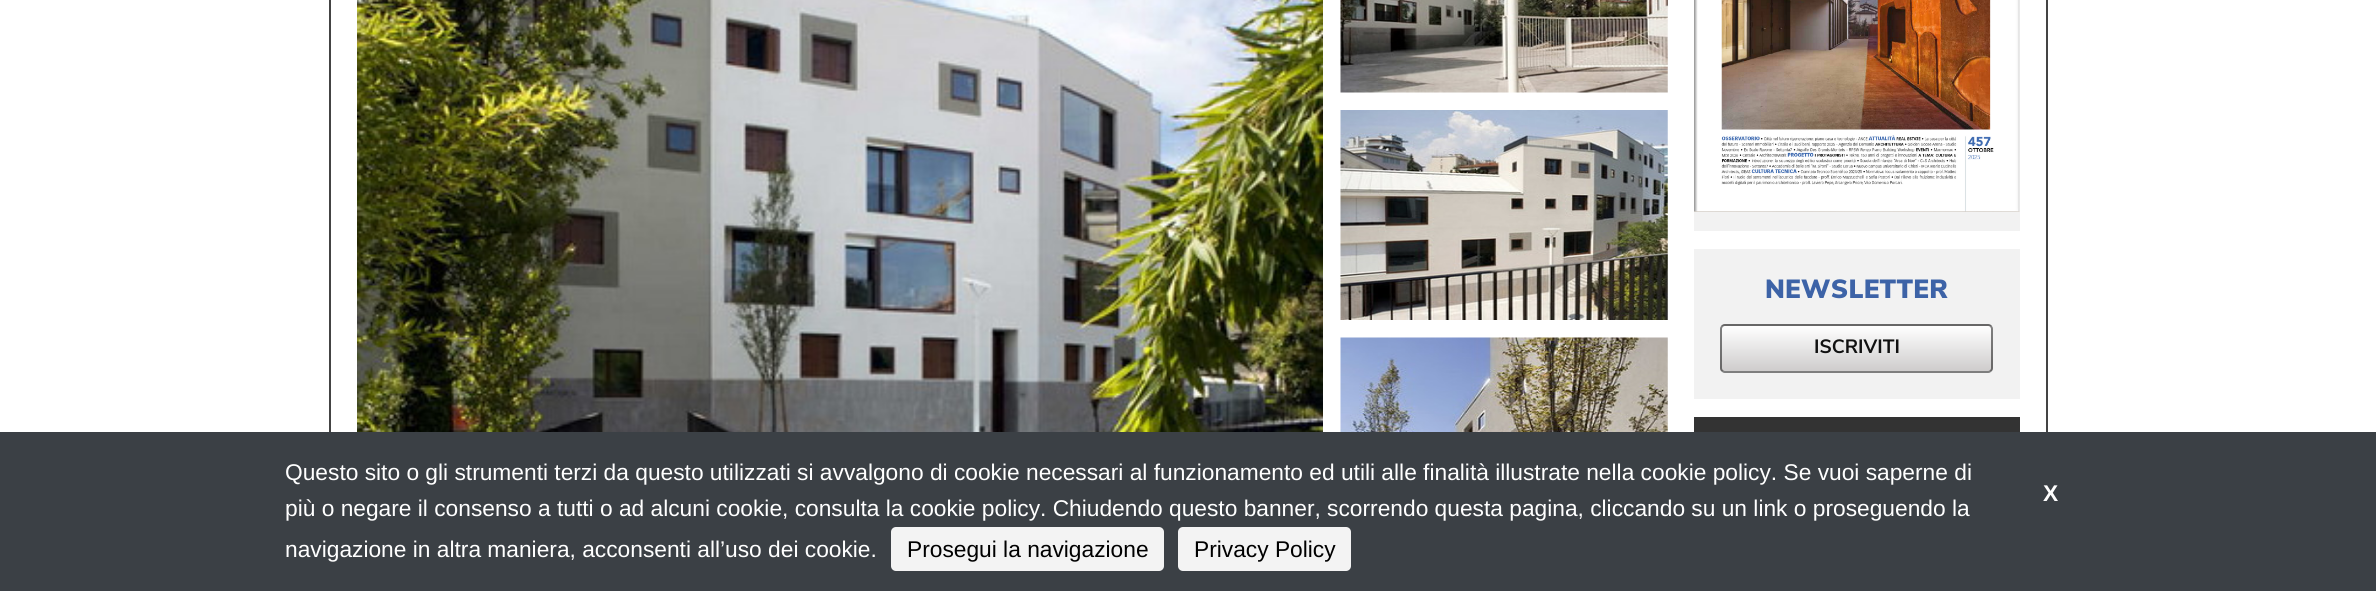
import math
import cairo



def draw_spaced(context, x, y, s, letter, word):
    context.move_to(x, y)
    for ch in s:
        context.show_text(ch)
        context.rel_move_to(letter + word * (ch == ' '), 0)


def rounded_rect(context, x, y, w, h, r):
    context.new_sub_path()
    for i, (u, v) in enumerate([(x + w - r, y + h - r), (x + r, y + h - r), (x + r, y + r), (x + w - r, y + r)]):
        context.arc(u, v, r, i * math.pi / 2, (i + 1) * math.pi / 2)
    context.close_path()


def draw_image(context, path, x, y, w, h):
    context.save()
    context.set_source_surface(cairo.ImageSurface.create_from_png(path), x, y)
    context.rectangle(x, y, w, h)
    context.fill()
    context.restore()


def draw(context):
    context.set_source_rgb(1, 1, 1)
    context.paint()
    context.rectangle(330, -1, 1717, 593)
    context.set_source_rgb(68 / 255, 68 / 255, 68 / 255)
    context.stroke()
    draw_image(context, "images/1.png", 357, 0, 966, 432)
    draw_image(context, "images/2.png", 1340, 0, 328, 93)
    draw_image(context, "images/3.png", 1340, 110, 328, 210)
    draw_image(context, "images/4.png", 1340, 337, 328, 95)
    context.set_source_rgb(242 / 255, 242 / 255, 242 / 255)
    context.rectangle(1694, 0, 326, 231)
    context.fill()
    draw_image(context, "images/5.png", 1694, 0, 326, 212)
    context.rectangle(1694, 249, 326, 150)
    context.fill()
    context.save()
    rounded_rect(context, 1720, 324, 273, 49, 5)
    context.clip()
    gradient = cairo.LinearGradient(1857, 280, 1857, 326)
    gradient.add_color_stop_rgba(0, 1, 1, 1, 1)
    gradient.add_color_stop_rgba(1, 206 / 255, 204 / 255, 204 / 255, 1)
    context.set_source(gradient)
    context.rectangle(1720, 324, 273, 2)
    context.fill()
    gradient = cairo.LinearGradient(1857, 326, 1857, 371)
    gradient.add_color_stop_rgba(0, 1, 1, 1, 1)
    gradient.add_color_stop_rgba(1, 206 / 255, 204 / 255, 204 / 255, 1)
    context.set_source(gradient)
    context.rectangle(1720, 326, 273, 45)
    context.fill()
    gradient = cairo.LinearGradient(1857, 371, 1857, 417)
    gradient.add_color_stop_rgba(0, 1, 1, 1, 1)
    gradient.add_color_stop_rgba(1, 206 / 255, 204 / 255, 204 / 255, 1)
    context.set_source(gradient)
    context.rectangle(1720, 371, 273, 2)
    context.fill()
    context.restore()
    rounded_rect(context, 1721, 325, 271, 47, 4)
    context.set_source_rgba(0, 0, 0, 0.5)
    context.stroke()
    context.set_source_rgb(51 / 255, 51 / 255, 51 / 255)
    context.rectangle(1694, 417, 326, 15)
    context.fill()
    context.set_source_rgb(59 / 255, 64 / 255, 69 / 255)
    context.rectangle(0, 432, 2376, 159)
    context.fill()
    context.set_source_rgb(243 / 255, 243 / 255, 243 / 255)
    rounded_rect(context, 891, 527, 273, 44, 5)
    context.fill()
    rounded_rect(context, 1178, 527, 173, 44, 5)
    context.fill()
    context.select_font_face("Nunito Sans Black")
    context.set_font_size(26.25)
    context.set_source_rgb(61 / 255, 99 / 255, 167 / 255)
    draw_spaced(context, 1765, 298, "NEWSLETTER", 0.25, 0)
    context.select_font_face("Nunito Sans", cairo.FontSlant.NORMAL, cairo.FontWeight.BOLD)
    context.set_font_size(19.25)
    context.set_source_rgb(17 / 255, 17 / 255, 17 / 255)
    context.move_to(1814, 353)
    context.show_text("ISCRIVITI")
    context.select_font_face("Liberation Sans")
    context.set_font_size(22.75)
    context.set_source_rgb(1, 1, 1)
    context.move_to(285, 480)
    context.show_text("Questo sito o gli strumenti terzi da questo utilizzati si avvalgono di cookie necessari al funzionamento ed utili alle finalità illustrate nella cookie policy. Se vuoi saperne di")
    context.select_font_face("Liberation Sans", cairo.FontSlant.NORMAL, cairo.FontWeight.BOLD)
    context.move_to(2043, 501)
    context.show_text("X")
    context.select_font_face("Liberation Sans")
    context.move_to(285, 516)
    context.show_text("più o negare il consenso a tutti o ad alcuni cookie, consulta la cookie policy. Chiudendo questo banner, scorrendo questa pagina, cliccando su un link o proseguendo la")
    context.move_to(285, 557)
    context.show_text("navigazione in altra maniera, acconsenti all’uso dei cookie.")
    context.set_source_rgb(0, 0, 0)
    context.move_to(907, 557)
    context.show_text("Prosegui la navigazione")
    context.move_to(1194, 557)
    context.show_text("Privacy Policy")


surface = cairo.ImageSurface(cairo.Format.RGB24, 2376, 591)
context = cairo.Context(surface)
options = cairo.FontOptions()
options.set_hint_metrics(cairo.HintMetrics.OFF)
options.set_hint_style(cairo.HintStyle.NONE)
context.set_font_options(options)
context.set_miter_limit(4)
draw(context)
surface.write_to_png("out.png")
